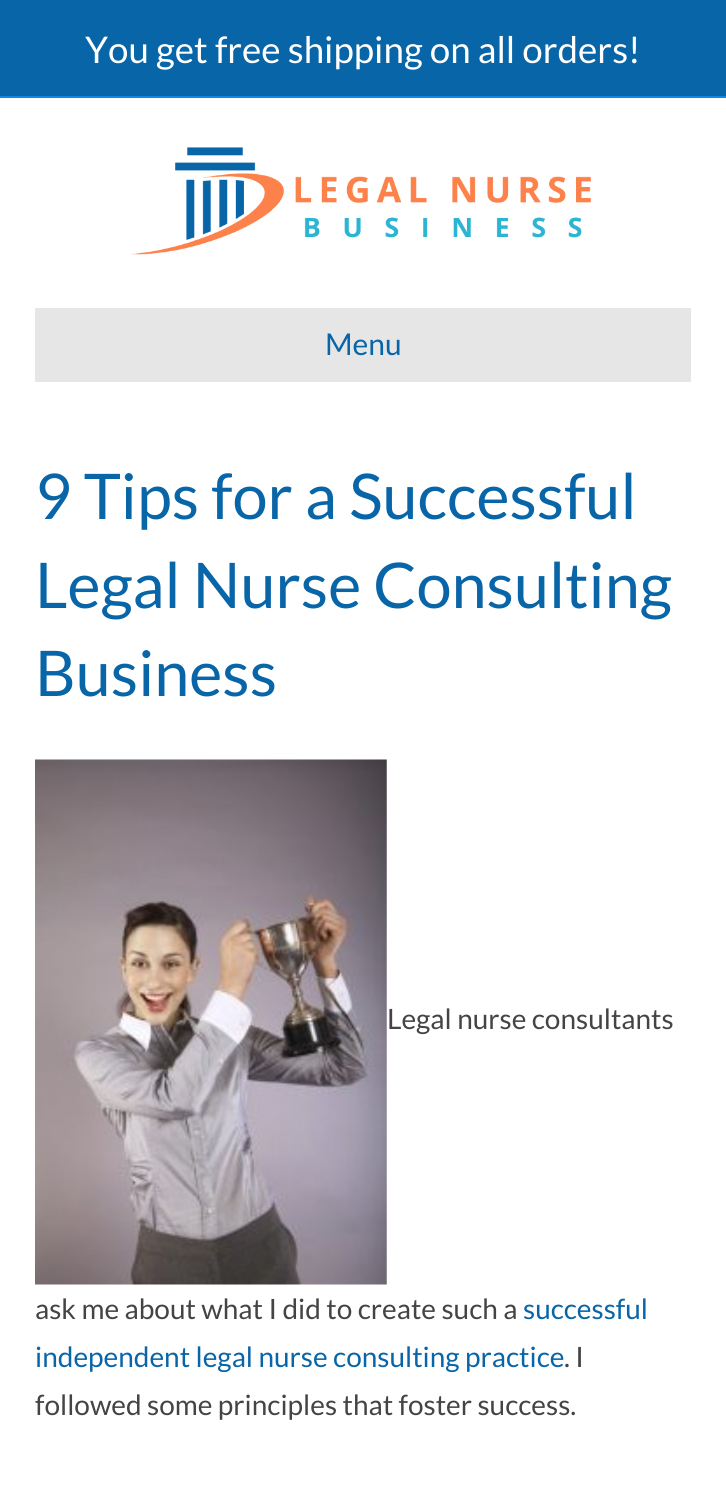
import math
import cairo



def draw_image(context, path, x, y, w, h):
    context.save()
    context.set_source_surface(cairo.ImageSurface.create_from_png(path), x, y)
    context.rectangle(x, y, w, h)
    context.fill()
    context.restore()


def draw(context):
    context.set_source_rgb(1, 1, 1)
    context.paint()
    context.set_source_rgb(8 / 255, 101 / 255, 167 / 255)
    context.rectangle(0, 0, 726, 96)
    context.fill()
    context.set_source_rgb(11 / 255, 139 / 255, 230 / 255)
    context.rectangle(0, 96, 726, 2)
    context.fill()
    draw_image(context, "images/1.png", 130, 147, 461, 108)
    context.set_source_rgb(230 / 255, 230 / 255, 230 / 255)
    context.rectangle(35, 308, 656, 74)
    context.fill()
    draw_image(context, "images/2.png", 35, 759, 352, 526)
    context.select_font_face("Lato")
    context.set_font_size(36.75)
    context.set_source_rgb(1, 1, 1)
    context.move_to(85, 63)
    context.show_text("You get free shipping on all orders!")
    context.set_font_size(30)
    context.set_source_rgb(8 / 255, 101 / 255, 167 / 255)
    context.move_to(325, 355)
    context.show_text("Menu")
    context.set_font_size(63)
    context.move_to(35, 519)
    context.show_text("9 Tips for a Successful")
    context.move_to(35, 608)
    context.show_text("Legal Nurse Consulting")
    context.move_to(35, 696)
    context.show_text("Business")
    context.set_font_size(28)
    context.set_source_rgb(68 / 255, 68 / 255, 68 / 255)
    context.move_to(387, 1029)
    context.show_text("Legal nurse consultants")
    context.move_to(35, 1319)
    context.show_text("ask me about what I did to create such a")
    context.set_source_rgb(8 / 255, 101 / 255, 167 / 255)
    context.move_to(523, 1319)
    context.show_text("successful")
    context.move_to(35, 1367)
    context.show_text("independent legal nurse consulting practice")
    context.set_source_rgb(68 / 255, 68 / 255, 68 / 255)
    context.move_to(564, 1367)
    context.show_text(". I")
    context.move_to(35, 1415)
    context.show_text("followed some principles that foster success.")


surface = cairo.ImageSurface(cairo.Format.RGB24, 726, 1488)
context = cairo.Context(surface)
options = cairo.FontOptions()
options.set_hint_metrics(cairo.HintMetrics.OFF)
options.set_hint_style(cairo.HintStyle.NONE)
context.set_font_options(options)
context.set_miter_limit(4)
draw(context)
surface.write_to_png("out.png")
